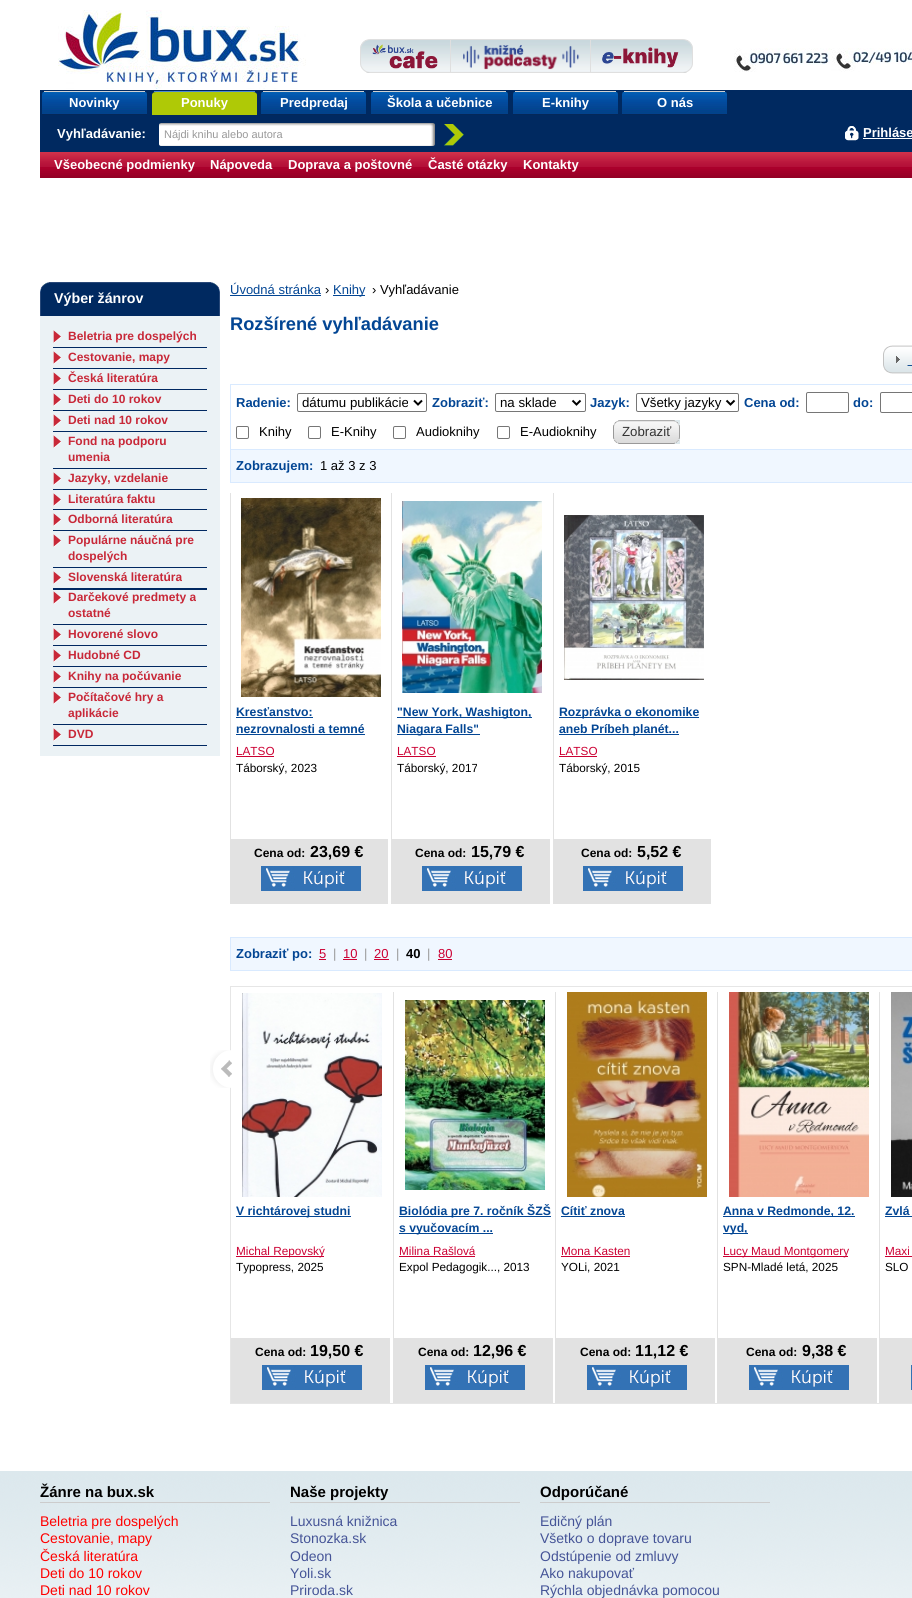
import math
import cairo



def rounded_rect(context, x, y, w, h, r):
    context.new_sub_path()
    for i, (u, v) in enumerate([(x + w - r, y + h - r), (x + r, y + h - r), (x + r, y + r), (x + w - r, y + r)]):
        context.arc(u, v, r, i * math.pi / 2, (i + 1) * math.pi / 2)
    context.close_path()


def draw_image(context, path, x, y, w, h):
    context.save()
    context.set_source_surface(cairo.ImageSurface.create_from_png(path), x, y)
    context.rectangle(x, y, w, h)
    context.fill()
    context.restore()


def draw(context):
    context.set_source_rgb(1, 1, 1)
    context.paint()
    draw_image(context, "images/1.png", 50, 10, 256, 79)
    draw_image(context, "images/2.png", 360, 40, 90, 33)
    context.new_path()
    context.move_to(370, 39.5)
    context.line_to(450.5, 39.5)
    context.line_to(450.5, 72.5)
    context.line_to(370, 72.5)
    context.curve_to(365, 72.5, 360.5, 68, 360.5, 63)
    context.line_to(360.5, 49)
    context.curve_to(360.5, 44, 365, 39.5, 370, 39.5)
    context.close_path()
    context.set_source_rgb(223 / 255, 223 / 255, 223 / 255)
    context.set_line_width(1)
    context.stroke()
    draw_image(context, "images/3.png", 372, 44, 66, 25)
    draw_image(context, "images/4.png", 451, 40, 139, 32)
    context.rectangle(451, 39, 139, 1)
    context.fill()
    context.rectangle(451, 72, 139, 1)
    context.fill()
    draw_image(context, "images/5.png", 463, 45, 117, 25)
    draw_image(context, "images/6.png", 591, 40, 102, 33)
    context.new_path()
    context.move_to(590.5, 39.5)
    context.line_to(683, 39.5)
    context.curve_to(688, 39.5, 692.5, 44, 692.5, 49)
    context.line_to(692.5, 63)
    context.curve_to(692.5, 68, 688, 72.5, 683, 72.5)
    context.line_to(590.5, 72.5)
    context.close_path()
    context.stroke()
    draw_image(context, "images/7.png", 602, 47, 77, 21)
    draw_image(context, "images/8.png", 734, 48, 178, 24)
    context.set_source_rgb(0, 41 / 255, 96 / 255)
    context.rectangle(40, 90, 872, 62)
    context.fill()
    draw_image(context, "images/9.png", 42, 92, 105, 23)
    context.set_source_rgb(209 / 255, 209 / 255, 209 / 255)
    context.rectangle(44, 91, 101, 1)
    context.fill()
    context.set_source_rgb(175 / 255, 201 / 255, 6 / 255)
    context.new_path()
    context.move_to(156, 92)
    context.line_to(253, 92)
    context.curve_to(255, 92, 257, 93, 257, 95)
    context.line_to(257, 115)
    context.line_to(152, 115)
    context.line_to(152, 95)
    context.curve_to(152, 93, 154, 92, 156, 92)
    context.close_path()
    context.fill()
    context.set_source_rgb(76 / 255, 138 / 255, 213 / 255)
    context.rectangle(154, 91, 101, 1)
    context.fill()
    draw_image(context, "images/9.png", 261, 92, 105, 23)
    context.set_source_rgb(209 / 255, 209 / 255, 209 / 255)
    context.rectangle(263, 91, 101, 1)
    context.fill()
    draw_image(context, "images/10.png", 371, 92, 137, 23)
    context.rectangle(373, 91, 133, 1)
    context.fill()
    draw_image(context, "images/9.png", 513, 92, 105, 23)
    context.rectangle(515, 91, 101, 1)
    context.fill()
    draw_image(context, "images/9.png", 622, 92, 105, 23)
    context.rectangle(624, 91, 101, 1)
    context.fill()
    draw_image(context, "images/11.png", 159, 123, 276, 23)
    draw_image(context, "images/12.png", 444, 124, 20, 22)
    draw_image(context, "images/13.png", 845, 126, 14, 15)
    context.set_source_rgb(1, 1, 1)
    context.rectangle(863, 138, 49, 1)
    context.fill()
    draw_image(context, "images/14.png", 40, 152, 872, 26)
    draw_image(context, "images/15.png", 40, 282, 171, 34)
    draw_image(context, "images/16.png", 211, 282, 9, 34)
    context.set_source_rgb(235 / 255, 242 / 255, 245 / 255)
    context.rectangle(40, 316, 180, 440)
    context.fill()
    context.set_source_rgb(0, 40 / 255, 97 / 255)
    context.rectangle(53, 347, 154, 1)
    context.fill()
    draw_image(context, "images/17.png", 53, 330, 8, 13)
    context.rectangle(53, 368, 154, 1)
    context.fill()
    draw_image(context, "images/17.png", 53, 351, 8, 13)
    context.rectangle(53, 389, 154, 1)
    context.fill()
    draw_image(context, "images/17.png", 53, 372, 8, 13)
    context.rectangle(53, 410, 154, 1)
    context.fill()
    draw_image(context, "images/17.png", 53, 393, 8, 13)
    context.rectangle(53, 431, 154, 1)
    context.fill()
    draw_image(context, "images/17.png", 53, 414, 8, 13)
    context.rectangle(53, 468, 154, 1)
    context.fill()
    draw_image(context, "images/17.png", 53, 435, 8, 13)
    context.rectangle(53, 489, 154, 1)
    context.fill()
    draw_image(context, "images/17.png", 53, 472, 8, 13)
    context.rectangle(53, 509, 154, 1)
    context.fill()
    draw_image(context, "images/17.png", 53, 493, 8, 13)
    context.rectangle(53, 530, 154, 1)
    context.fill()
    draw_image(context, "images/17.png", 53, 513, 8, 13)
    context.rectangle(53, 567, 154, 1)
    context.fill()
    draw_image(context, "images/17.png", 53, 534, 8, 13)
    draw_image(context, "images/17.png", 53, 571, 8, 13)
    context.rectangle(53, 588, 154, 2)
    context.fill()
    context.rectangle(53, 624, 154, 1)
    context.fill()
    draw_image(context, "images/17.png", 53, 591, 8, 13)
    context.rectangle(53, 645, 154, 1)
    context.fill()
    draw_image(context, "images/17.png", 53, 628, 8, 13)
    context.rectangle(53, 666, 154, 1)
    context.fill()
    draw_image(context, "images/17.png", 53, 649, 8, 13)
    context.rectangle(53, 687, 154, 1)
    context.fill()
    draw_image(context, "images/17.png", 53, 670, 8, 13)
    context.rectangle(53, 724, 154, 1)
    context.fill()
    draw_image(context, "images/17.png", 53, 691, 8, 13)
    context.rectangle(53, 745, 154, 1)
    context.fill()
    draw_image(context, "images/17.png", 53, 728, 8, 13)
    context.set_source_rgb(3 / 255, 70 / 255, 148 / 255)
    context.rectangle(230, 295, 91, 1)
    context.fill()
    context.rectangle(333, 295, 32, 1)
    context.fill()
    draw_image(context, "images/18.png", 883, 345, 29, 29)
    draw_image(context, "images/19.png", 907, 365, 5, 1)
    context.set_source_rgb(217 / 255, 234 / 255, 1)
    context.rectangle(230, 384, 682, 1)
    context.fill()
    context.rectangle(230, 384, 1, 65)
    context.fill()
    rounded_rect(context, 297.5, 393.5, 129, 18, 1.5)
    context.set_source_rgb(118 / 255, 118 / 255, 118 / 255)
    context.stroke()
    context.new_path()
    context.move_to(414, 400.5)
    context.line_to(418, 404.5)
    context.line_to(422, 400.5)
    context.set_source_rgb(0, 0, 0)
    context.set_line_width(2)
    context.stroke()
    rounded_rect(context, 495.5, 393.5, 90, 18, 1.5)
    context.set_source_rgb(118 / 255, 118 / 255, 118 / 255)
    context.set_line_width(1)
    context.stroke()
    context.new_path()
    context.move_to(572.5, 400.5)
    context.line_to(576.5, 404.5)
    context.line_to(580.5, 400.5)
    context.set_source_rgb(0, 0, 0)
    context.set_line_width(2)
    context.stroke()
    rounded_rect(context, 636.5, 393.5, 102, 18, 1.5)
    context.set_source_rgb(118 / 255, 118 / 255, 118 / 255)
    context.set_line_width(1)
    context.stroke()
    context.new_path()
    context.move_to(726.5, 400.5)
    context.line_to(730.5, 404.5)
    context.line_to(734.5, 400.5)
    context.set_source_rgb(0, 0, 0)
    context.set_line_width(2)
    context.stroke()
    rounded_rect(context, 806.5, 392.5, 42, 20, 1.5)
    context.set_source_rgb(118 / 255, 118 / 255, 118 / 255)
    context.set_line_width(1)
    context.stroke()
    rounded_rect(context, 880.5, 392.5, 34, 20, 1.5)
    context.stroke()
    rounded_rect(context, 236.5, 426.5, 12, 12, 1.5)
    context.stroke()
    rounded_rect(context, 308.5, 426.5, 12, 12, 1.5)
    context.stroke()
    rounded_rect(context, 393.5, 426.5, 12, 12, 1.5)
    context.stroke()
    rounded_rect(context, 497.5, 426.5, 12, 12, 1.5)
    context.stroke()
    draw_image(context, "images/20.png", 613, 420, 61, 24)
    draw_image(context, "images/21.png", 674, 420, 6, 24)
    context.set_source_rgb(240 / 255, 247 / 255, 1)
    context.rectangle(230.5, 449.5, 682, 33)
    context.fill_preserve()
    context.set_source_rgb(217 / 255, 234 / 255, 1)
    context.stroke()
    context.set_source_rgb(226 / 255, 226 / 255, 226 / 255)
    context.rectangle(230, 493, 1, 411)
    context.fill()
    draw_image(context, "images/22.png", 241, 498, 140, 199)
    context.set_source_rgb(3 / 255, 70 / 255, 148 / 255)
    context.rectangle(236, 717, 77, 1)
    context.fill()
    context.rectangle(236, 734, 129, 1)
    context.fill()
    context.set_source_rgb(204 / 255, 0, 51 / 255)
    context.rectangle(236, 756, 38, 1)
    context.fill()
    context.set_source_rgb(226 / 255, 226 / 255, 226 / 255)
    context.rectangle(231, 839, 157, 65)
    context.fill()
    draw_image(context, "images/23.png", 261, 866, 100, 25)
    context.rectangle(391, 493, 1, 411)
    context.fill()
    draw_image(context, "images/24.png", 402, 501, 140, 192)
    context.set_source_rgb(3 / 255, 70 / 255, 148 / 255)
    context.rectangle(397, 717, 135, 1)
    context.fill()
    context.rectangle(397, 734, 83, 1)
    context.fill()
    context.set_source_rgb(204 / 255, 0, 51 / 255)
    context.rectangle(397, 756, 39, 1)
    context.fill()
    context.set_source_rgb(226 / 255, 226 / 255, 226 / 255)
    context.rectangle(392, 839, 158, 65)
    context.fill()
    draw_image(context, "images/23.png", 422, 866, 100, 25)
    context.rectangle(553, 493, 1, 411)
    context.fill()
    draw_image(context, "images/25.png", 564, 515, 140, 165)
    context.set_source_rgb(3 / 255, 70 / 255, 148 / 255)
    context.rectangle(559, 717, 140, 1)
    context.fill()
    context.rectangle(559, 734, 120, 1)
    context.fill()
    context.set_source_rgb(204 / 255, 0, 51 / 255)
    context.rectangle(559, 756, 38, 1)
    context.fill()
    context.set_source_rgb(226 / 255, 226 / 255, 226 / 255)
    context.rectangle(554, 839, 157, 65)
    context.fill()
    draw_image(context, "images/23.png", 583, 866, 100, 25)
    context.set_source_rgb(240 / 255, 247 / 255, 1)
    context.rectangle(230.5, 937.5, 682, 33)
    context.fill_preserve()
    context.set_source_rgb(217 / 255, 234 / 255, 1)
    context.stroke()
    context.set_source_rgb(204 / 255, 0, 51 / 255)
    context.rectangle(319, 959, 7, 1)
    context.fill()
    context.rectangle(343, 959, 14, 1)
    context.fill()
    context.rectangle(374, 959, 15, 1)
    context.fill()
    context.rectangle(438, 959, 14, 1)
    context.fill()
    context.rectangle(230.5, 986.5, 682, 417)
    context.set_source_rgb(230 / 255, 230 / 255, 230 / 255)
    context.stroke()
    draw_image(context, "images/26.png", 210, 1050, 22, 38)
    draw_image(context, "images/27.png", 242, 993, 140, 204)
    context.set_source_rgb(3 / 255, 70 / 255, 148 / 255)
    context.rectangle(236, 1216, 115, 1)
    context.fill()
    context.set_source_rgb(204 / 255, 0, 51 / 255)
    context.rectangle(236, 1256, 88, 1)
    context.fill()
    context.set_source_rgb(226 / 255, 226 / 255, 226 / 255)
    context.rectangle(231, 1338, 159, 65)
    context.fill()
    draw_image(context, "images/23.png", 262, 1365, 100, 25)
    context.rectangle(393, 992, 1, 411)
    context.fill()
    draw_image(context, "images/28.png", 405, 1000, 140, 190)
    context.set_source_rgb(3 / 255, 70 / 255, 148 / 255)
    context.rectangle(399, 1216, 152, 1)
    context.fill()
    context.rectangle(399, 1233, 94, 1)
    context.fill()
    context.set_source_rgb(204 / 255, 0, 51 / 255)
    context.rectangle(399, 1256, 76, 1)
    context.fill()
    context.set_source_rgb(226 / 255, 226 / 255, 226 / 255)
    context.rectangle(394, 1338, 159, 65)
    context.fill()
    draw_image(context, "images/23.png", 425, 1365, 100, 25)
    context.rectangle(555, 992, 1, 411)
    context.fill()
    draw_image(context, "images/29.png", 567, 992, 140, 205)
    context.set_source_rgb(3 / 255, 70 / 255, 148 / 255)
    context.rectangle(561, 1216, 64, 1)
    context.fill()
    context.set_source_rgb(204 / 255, 0, 51 / 255)
    context.rectangle(561, 1256, 69, 1)
    context.fill()
    context.set_source_rgb(226 / 255, 226 / 255, 226 / 255)
    context.rectangle(556, 1338, 159, 65)
    context.fill()
    draw_image(context, "images/23.png", 587, 1365, 100, 25)
    context.rectangle(717, 992, 1, 411)
    context.fill()
    draw_image(context, "images/30.png", 729, 992, 140, 205)
    context.set_source_rgb(3 / 255, 70 / 255, 148 / 255)
    context.rectangle(723, 1216, 132, 1)
    context.fill()
    context.rectangle(723, 1233, 25, 1)
    context.fill()
    context.set_source_rgb(204 / 255, 0, 51 / 255)
    context.rectangle(723, 1256, 125, 1)
    context.fill()
    context.set_source_rgb(226 / 255, 226 / 255, 226 / 255)
    context.rectangle(718, 1338, 159, 65)
    context.fill()
    draw_image(context, "images/23.png", 749, 1365, 100, 25)
    context.rectangle(879, 992, 1, 411)
    context.fill()
    draw_image(context, "images/31.png", 891, 992, 21, 205)
    context.set_source_rgb(3 / 255, 70 / 255, 148 / 255)
    context.rectangle(885, 1216, 27, 1)
    context.fill()
    context.set_source_rgb(204 / 255, 0, 51 / 255)
    context.rectangle(885, 1256, 27, 1)
    context.fill()
    context.set_source_rgb(226 / 255, 226 / 255, 226 / 255)
    context.rectangle(880, 1338, 32, 65)
    context.fill()
    draw_image(context, "images/32.png", 911, 1365, 1, 25)
    draw_image(context, "images/33.png", 0, 1471, 912, 127)
    context.set_source_rgb(204 / 255, 204 / 255, 204 / 255)
    context.rectangle(40, 1502, 230, 1)
    context.fill()
    context.rectangle(290, 1502, 230, 1)
    context.fill()
    context.rectangle(540, 1502, 230, 1)
    context.fill()
    context.select_font_face("Liberation Sans", cairo.FontSlant.NORMAL, cairo.FontWeight.BOLD)
    context.set_font_size(13)
    context.set_source_rgb(1, 1, 1)
    context.move_to(69, 107)
    context.show_text("Novinky")
    context.move_to(181, 107)
    context.show_text("Ponuky")
    context.move_to(280, 107)
    context.show_text("Predpredaj")
    context.move_to(387, 107)
    context.show_text("Škola a učebnice")
    context.move_to(542, 107)
    context.show_text("E-knihy")
    context.move_to(657, 107)
    context.show_text("O nás")
    context.move_to(57, 138)
    context.show_text("Vyhľadávanie:")
    context.select_font_face("Liberation Sans")
    context.set_font_size(11)
    context.set_source_rgb(153 / 255, 153 / 255, 153 / 255)
    context.move_to(164, 138)
    context.show_text("Nájdi knihu alebo autora")
    context.select_font_face("Liberation Sans", cairo.FontSlant.NORMAL, cairo.FontWeight.BOLD)
    context.set_font_size(13)
    context.set_source_rgb(1, 1, 1)
    context.move_to(863, 137)
    context.show_text("Prihláse")
    context.move_to(54, 169)
    context.show_text("Všeobecné podmienky")
    context.move_to(210, 169)
    context.show_text("Nápoveda")
    context.move_to(288, 169)
    context.show_text("Doprava a poštovné")
    context.move_to(428, 169)
    context.show_text("Časté otázky")
    context.move_to(523, 169)
    context.show_text("Kontakty")
    context.set_font_size(14.25)
    context.move_to(54, 303)
    context.show_text("Výber žánrov")
    context.set_font_size(12)
    context.set_source_rgb(200 / 255, 40 / 255, 56 / 255)
    context.move_to(68, 340)
    context.show_text("Beletria pre dospelých")
    context.move_to(68, 361)
    context.show_text("Cestovanie, mapy")
    context.move_to(68, 382)
    context.show_text("Česká literatúra")
    context.move_to(68, 403)
    context.show_text("Deti do 10 rokov")
    context.move_to(68, 424)
    context.show_text("Deti nad 10 rokov")
    context.move_to(68, 445)
    context.show_text("Fond na podporu")
    context.move_to(68, 461)
    context.show_text("umenia")
    context.move_to(68, 482)
    context.show_text("Jazyky, vzdelanie")
    context.move_to(68, 503)
    context.show_text("Literatúra faktu")
    context.move_to(68, 523)
    context.show_text("Odborná literatúra")
    context.move_to(68, 544)
    context.show_text("Populárne náučná pre")
    context.move_to(68, 560)
    context.show_text("dospelých")
    context.move_to(68, 581)
    context.show_text("Slovenská literatúra")
    context.move_to(68, 601)
    context.show_text("Darčekové predmety a")
    context.move_to(68, 617)
    context.show_text("ostatné")
    context.move_to(68, 638)
    context.show_text("Hovorené slovo")
    context.move_to(68, 659)
    context.show_text("Hudobné CD")
    context.move_to(68, 680)
    context.show_text("Knihy na počúvanie")
    context.move_to(68, 701)
    context.show_text("Počítačové hry a")
    context.move_to(68, 717)
    context.show_text("aplikácie")
    context.move_to(68, 738)
    context.show_text("DVD")
    context.select_font_face("Liberation Sans")
    context.set_font_size(13)
    context.set_source_rgb(3 / 255, 70 / 255, 148 / 255)
    context.move_to(230, 294)
    context.show_text("Úvodná stránka")
    context.set_source_rgb(0, 0, 0)
    context.move_to(325, 294)
    context.show_text("›")
    context.set_source_rgb(3 / 255, 70 / 255, 148 / 255)
    context.move_to(333, 294)
    context.show_text("Knihy")
    context.set_source_rgb(0, 0, 0)
    context.move_to(372, 294)
    context.show_text("› Vyhľadávanie")
    context.select_font_face("Liberation Sans", cairo.FontSlant.NORMAL, cairo.FontWeight.BOLD)
    context.set_font_size(18.25)
    context.set_source_rgb(3 / 255, 70 / 255, 148 / 255)
    context.move_to(230, 330)
    context.show_text("Rozšírené vyhľadávanie")
    context.set_font_size(13)
    context.move_to(236, 407)
    context.show_text("Radenie:")
    context.select_font_face("Liberation Sans")
    context.set_font_size(13.25)
    context.set_source_rgb(0, 0, 0)
    context.move_to(302, 407)
    context.show_text("dátumu publikácie")
    context.select_font_face("Liberation Sans", cairo.FontSlant.NORMAL, cairo.FontWeight.BOLD)
    context.set_font_size(13)
    context.set_source_rgb(3 / 255, 70 / 255, 148 / 255)
    context.move_to(432, 407)
    context.show_text("Zobraziť:")
    context.select_font_face("Liberation Sans")
    context.set_font_size(13.25)
    context.set_source_rgb(0, 0, 0)
    context.move_to(500, 407)
    context.show_text("na sklade")
    context.select_font_face("Liberation Sans", cairo.FontSlant.NORMAL, cairo.FontWeight.BOLD)
    context.set_font_size(13)
    context.set_source_rgb(3 / 255, 70 / 255, 148 / 255)
    context.move_to(590, 407)
    context.show_text("Jazyk:")
    context.select_font_face("Liberation Sans")
    context.set_font_size(13.25)
    context.set_source_rgb(0, 0, 0)
    context.move_to(641, 407)
    context.show_text("Všetky jazyky")
    context.select_font_face("Liberation Sans", cairo.FontSlant.NORMAL, cairo.FontWeight.BOLD)
    context.set_font_size(13)
    context.set_source_rgb(3 / 255, 70 / 255, 148 / 255)
    context.move_to(744, 407)
    context.show_text("Cena od:")
    context.move_to(853, 407)
    context.show_text("do:")
    context.select_font_face("Liberation Sans")
    context.set_source_rgb(0, 0, 0)
    context.move_to(259, 436)
    context.show_text("Knihy")
    context.move_to(331, 436)
    context.show_text("E-Knihy")
    context.move_to(416, 436)
    context.show_text("Audioknihy")
    context.move_to(520, 436)
    context.show_text("E-Audioknihy")
    context.set_font_size(13.25)
    context.set_source_rgb(51 / 255, 51 / 255, 51 / 255)
    context.move_to(622, 436)
    context.show_text("Zobraziť")
    context.select_font_face("Liberation Sans", cairo.FontSlant.NORMAL, cairo.FontWeight.BOLD)
    context.set_font_size(13)
    context.set_source_rgb(3 / 255, 70 / 255, 148 / 255)
    context.move_to(236, 470)
    context.show_text("Zobrazujem:")
    context.select_font_face("Liberation Sans")
    context.set_source_rgb(0, 0, 0)
    context.move_to(320, 470)
    context.show_text("1 až 3 z 3")
    context.select_font_face("Liberation Sans", cairo.FontSlant.NORMAL, cairo.FontWeight.BOLD)
    context.set_font_size(12.25)
    context.set_source_rgb(3 / 255, 70 / 255, 148 / 255)
    context.move_to(236, 716)
    context.show_text("Kresťanstvo:")
    context.move_to(236, 733)
    context.show_text("nezrovnalosti a temné")
    context.select_font_face("Liberation Sans")
    context.set_font_size(11.75)
    context.set_source_rgb(204 / 255, 0, 51 / 255)
    context.move_to(236, 755)
    context.show_text("LATSO")
    context.set_source_rgb(0, 0, 0)
    context.move_to(236, 772)
    context.show_text("Táborský, 2023")
    context.select_font_face("Liberation Sans", cairo.FontSlant.NORMAL, cairo.FontWeight.BOLD)
    context.set_font_size(12)
    context.move_to(254, 857)
    context.show_text("Cena od:")
    context.set_font_size(16)
    context.move_to(310, 857)
    context.show_text("23,69 €")
    context.set_font_size(12.25)
    context.set_source_rgb(3 / 255, 70 / 255, 148 / 255)
    context.move_to(397, 716)
    context.show_text("\"New York, Washigton,")
    context.move_to(397, 733)
    context.show_text("Niagara Falls\"")
    context.select_font_face("Liberation Sans")
    context.set_font_size(11.75)
    context.set_source_rgb(204 / 255, 0, 51 / 255)
    context.move_to(397, 755)
    context.show_text("LATSO")
    context.set_source_rgb(0, 0, 0)
    context.move_to(397, 772)
    context.show_text("Táborský, 2017")
    context.select_font_face("Liberation Sans", cairo.FontSlant.NORMAL, cairo.FontWeight.BOLD)
    context.set_font_size(12)
    context.move_to(415, 857)
    context.show_text("Cena od:")
    context.set_font_size(16)
    context.move_to(471, 857)
    context.show_text("15,79 €")
    context.set_font_size(12.25)
    context.set_source_rgb(3 / 255, 70 / 255, 148 / 255)
    context.move_to(559, 716)
    context.show_text("Rozprávka o ekonomike")
    context.move_to(559, 733)
    context.show_text("aneb Príbeh planét...")
    context.select_font_face("Liberation Sans")
    context.set_font_size(11.75)
    context.set_source_rgb(204 / 255, 0, 51 / 255)
    context.move_to(559, 755)
    context.show_text("LATSO")
    context.set_source_rgb(0, 0, 0)
    context.move_to(559, 772)
    context.show_text("Táborský, 2015")
    context.select_font_face("Liberation Sans", cairo.FontSlant.NORMAL, cairo.FontWeight.BOLD)
    context.set_font_size(12)
    context.move_to(581, 857)
    context.show_text("Cena od:")
    context.set_font_size(16)
    context.move_to(637, 857)
    context.show_text("5,52 €")
    context.set_font_size(13)
    context.set_source_rgb(3 / 255, 70 / 255, 148 / 255)
    context.move_to(236, 958)
    context.show_text("Zobraziť po:")
    context.select_font_face("Liberation Sans")
    context.set_source_rgb(204 / 255, 0, 51 / 255)
    context.move_to(319, 958)
    context.show_text("5")
    context.set_source_rgb(153 / 255, 153 / 255, 153 / 255)
    context.move_to(333, 958)
    context.show_text("|")
    context.set_source_rgb(204 / 255, 0, 51 / 255)
    context.move_to(343, 958)
    context.show_text("10")
    context.set_source_rgb(153 / 255, 153 / 255, 153 / 255)
    context.move_to(364, 958)
    context.show_text("|")
    context.set_source_rgb(204 / 255, 0, 51 / 255)
    context.move_to(374, 958)
    context.show_text("20")
    context.set_source_rgb(153 / 255, 153 / 255, 153 / 255)
    context.move_to(396, 958)
    context.show_text("|")
    context.select_font_face("Liberation Sans", cairo.FontSlant.NORMAL, cairo.FontWeight.BOLD)
    context.set_source_rgb(0, 0, 0)
    context.move_to(406, 958)
    context.show_text("40")
    context.select_font_face("Liberation Sans")
    context.set_source_rgb(153 / 255, 153 / 255, 153 / 255)
    context.move_to(427, 958)
    context.show_text("|")
    context.set_source_rgb(204 / 255, 0, 51 / 255)
    context.move_to(438, 958)
    context.show_text("80")
    context.select_font_face("Liberation Sans", cairo.FontSlant.NORMAL, cairo.FontWeight.BOLD)
    context.set_font_size(12.25)
    context.set_source_rgb(3 / 255, 70 / 255, 148 / 255)
    context.move_to(236, 1215)
    context.show_text("V richtárovej studni")
    context.select_font_face("Liberation Sans")
    context.set_font_size(11.75)
    context.set_source_rgb(204 / 255, 0, 51 / 255)
    context.move_to(236, 1255)
    context.show_text("Michal Repovský")
    context.set_source_rgb(0, 0, 0)
    context.move_to(236, 1271)
    context.show_text("Typopress, 2025")
    context.select_font_face("Liberation Sans", cairo.FontSlant.NORMAL, cairo.FontWeight.BOLD)
    context.set_font_size(12)
    context.move_to(255, 1356)
    context.show_text("Cena od:")
    context.set_font_size(16)
    context.move_to(310, 1356)
    context.show_text("19,50 €")
    context.set_font_size(12.25)
    context.set_source_rgb(3 / 255, 70 / 255, 148 / 255)
    context.move_to(399, 1215)
    context.show_text("Biolódia pre 7. ročník ŠZŠ")
    context.move_to(399, 1232)
    context.show_text("s vyučovacím ...")
    context.select_font_face("Liberation Sans")
    context.set_font_size(11.75)
    context.set_source_rgb(204 / 255, 0, 51 / 255)
    context.move_to(399, 1255)
    context.show_text("Milina Rašlová")
    context.set_source_rgb(0, 0, 0)
    context.move_to(399, 1271)
    context.show_text("Expol Pedagogik..., 2013")
    context.select_font_face("Liberation Sans", cairo.FontSlant.NORMAL, cairo.FontWeight.BOLD)
    context.set_font_size(12)
    context.move_to(418, 1356)
    context.show_text("Cena od:")
    context.set_font_size(16)
    context.move_to(473, 1356)
    context.show_text("12,96 €")
    context.set_font_size(12.25)
    context.set_source_rgb(3 / 255, 70 / 255, 148 / 255)
    context.move_to(561, 1215)
    context.show_text("Cítiť znova")
    context.select_font_face("Liberation Sans")
    context.set_font_size(11.75)
    context.set_source_rgb(204 / 255, 0, 51 / 255)
    context.move_to(561, 1255)
    context.show_text("Mona Kasten")
    context.set_source_rgb(0, 0, 0)
    context.move_to(561, 1271)
    context.show_text("YOLi, 2021")
    context.select_font_face("Liberation Sans", cairo.FontSlant.NORMAL, cairo.FontWeight.BOLD)
    context.set_font_size(12)
    context.move_to(580, 1356)
    context.show_text("Cena od:")
    context.set_font_size(16)
    context.move_to(635, 1356)
    context.show_text("11,12 €")
    context.set_font_size(12.25)
    context.set_source_rgb(3 / 255, 70 / 255, 148 / 255)
    context.move_to(723, 1215)
    context.show_text("Anna v Redmonde, 12.")
    context.move_to(723, 1232)
    context.show_text("vyd,")
    context.select_font_face("Liberation Sans")
    context.set_font_size(11.75)
    context.set_source_rgb(204 / 255, 0, 51 / 255)
    context.move_to(723, 1255)
    context.show_text("Lucy Maud Montgomery")
    context.set_source_rgb(0, 0, 0)
    context.move_to(723, 1271)
    context.show_text("SPN-Mladé letá, 2025")
    context.select_font_face("Liberation Sans", cairo.FontSlant.NORMAL, cairo.FontWeight.BOLD)
    context.set_font_size(12)
    context.move_to(746, 1356)
    context.show_text("Cena od:")
    context.set_font_size(16)
    context.move_to(802, 1356)
    context.show_text("9,38 €")
    context.set_font_size(12.25)
    context.set_source_rgb(3 / 255, 70 / 255, 148 / 255)
    context.move_to(885, 1215)
    context.show_text("Zvlá")
    context.select_font_face("Liberation Sans")
    context.set_font_size(11.75)
    context.set_source_rgb(204 / 255, 0, 51 / 255)
    context.move_to(885, 1255)
    context.show_text("Maxi")
    context.set_source_rgb(0, 0, 0)
    context.move_to(885, 1271)
    context.show_text("SLO")
    context.select_font_face("Liberation Sans", cairo.FontSlant.NORMAL, cairo.FontWeight.BOLD)
    context.set_font_size(15)
    context.move_to(40, 1497)
    context.show_text("Žánre na bux.sk")
    context.select_font_face("Liberation Sans")
    context.set_font_size(14)
    context.set_source_rgb(1, 0, 0)
    context.move_to(40, 1526)
    context.show_text("Beletria pre dospelých")
    context.move_to(40, 1543)
    context.show_text("Cestovanie, mapy")
    context.move_to(40, 1561)
    context.show_text("Česká literatúra")
    context.move_to(40, 1578)
    context.show_text("Deti do 10 rokov")
    context.move_to(40, 1595)
    context.show_text("Deti nad 10 rokov")
    context.select_font_face("Liberation Sans", cairo.FontSlant.NORMAL, cairo.FontWeight.BOLD)
    context.set_font_size(15)
    context.set_source_rgb(0, 0, 0)
    context.move_to(290, 1497)
    context.show_text("Naše projekty")
    context.select_font_face("Liberation Sans")
    context.set_font_size(14)
    context.set_source_rgb(69 / 255, 84 / 255, 151 / 255)
    context.move_to(290, 1526)
    context.show_text("Luxusná knižnica")
    context.move_to(290, 1543)
    context.show_text("Stonozka.sk")
    context.move_to(290, 1561)
    context.show_text("Odeon")
    context.move_to(290, 1578)
    context.show_text("Yoli.sk")
    context.move_to(290, 1595)
    context.show_text("Priroda.sk")
    context.select_font_face("Liberation Sans", cairo.FontSlant.NORMAL, cairo.FontWeight.BOLD)
    context.set_font_size(15)
    context.set_source_rgb(0, 0, 0)
    context.move_to(540, 1497)
    context.show_text("Odporúčané")
    context.select_font_face("Liberation Sans")
    context.set_font_size(14)
    context.set_source_rgb(69 / 255, 84 / 255, 151 / 255)
    context.move_to(540, 1526)
    context.show_text("Edičný plán")
    context.move_to(540, 1543)
    context.show_text("Všetko o doprave tovaru")
    context.move_to(540, 1561)
    context.show_text("Odstúpenie od zmluvy")
    context.move_to(540, 1578)
    context.show_text("Ako nakupovať")
    context.move_to(540, 1595)
    context.show_text("Rýchla objednávka pomocou")


surface = cairo.ImageSurface(cairo.Format.RGB24, 912, 1598)
context = cairo.Context(surface)
options = cairo.FontOptions()
options.set_hint_metrics(cairo.HintMetrics.OFF)
options.set_hint_style(cairo.HintStyle.NONE)
context.set_font_options(options)
context.set_miter_limit(4)
draw(context)
surface.write_to_png("out.png")
